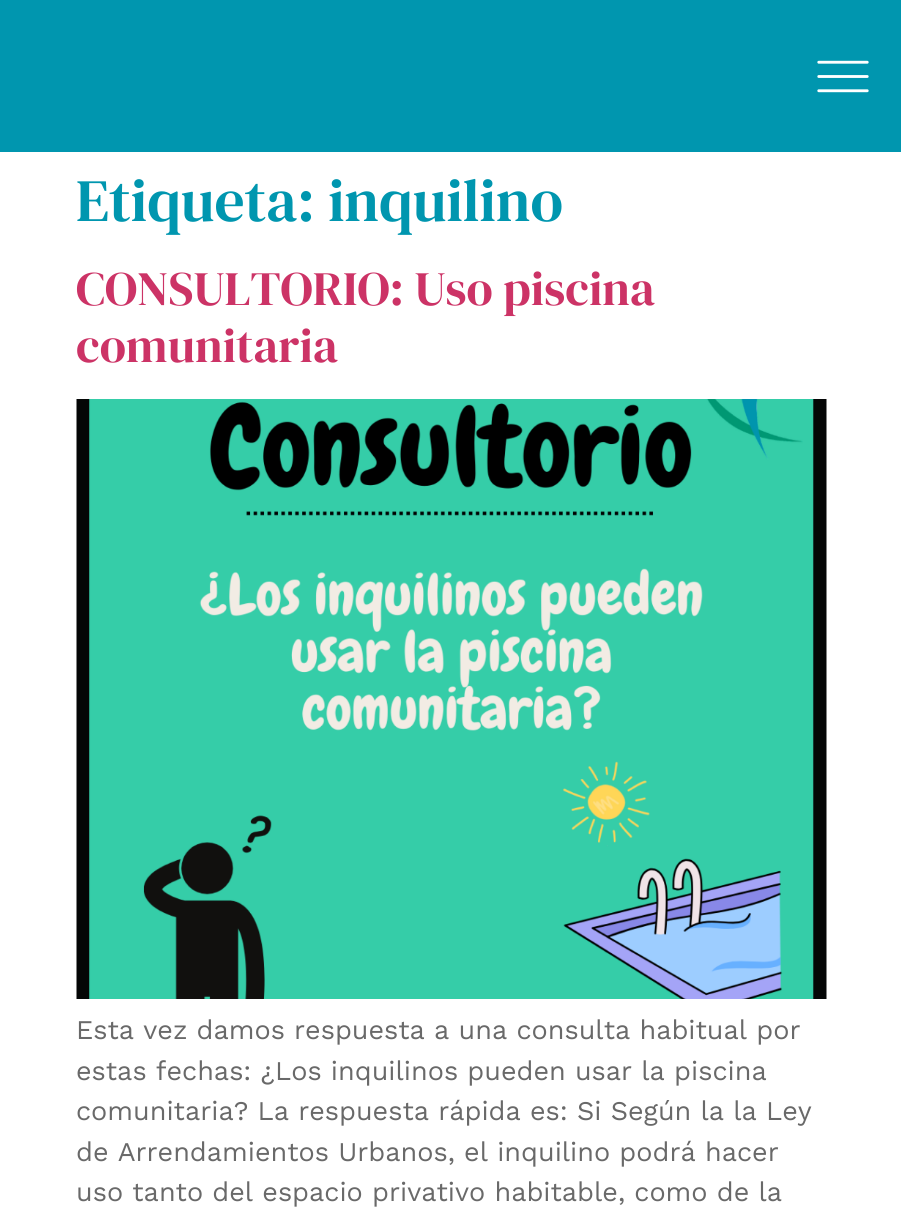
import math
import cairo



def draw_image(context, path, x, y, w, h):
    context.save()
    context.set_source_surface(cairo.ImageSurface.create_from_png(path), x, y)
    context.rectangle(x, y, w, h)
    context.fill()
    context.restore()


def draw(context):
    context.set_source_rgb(1, 1, 1)
    context.paint()
    context.set_source_rgb(0, 150 / 255, 175 / 255)
    context.rectangle(0, 0, 901, 152)
    context.fill()
    draw_image(context, "images/1.png", 817, 60, 52, 33)
    draw_image(context, "images/2.png", 76, 399, 751, 600)
    context.select_font_face("DM Serif Text")
    context.set_font_size(60)
    context.move_to(76, 221)
    context.show_text("Etiqueta: inquilino")
    context.select_font_face("DM Serif Display")
    context.set_font_size(48)
    context.set_source_rgb(204 / 255, 51 / 255, 102 / 255)
    context.move_to(76, 305)
    context.show_text("CONSULTORIO: Uso piscina")
    context.move_to(76, 362)
    context.show_text("comunitaria")
    context.select_font_face("Work Sans")
    context.set_font_size(27)
    context.set_source_rgb(105 / 255, 105 / 255, 105 / 255)
    context.move_to(76, 1039)
    context.show_text("Esta vez damos respuesta a una consulta habitual por")
    context.move_to(76, 1080)
    context.show_text("estas fechas: ¿Los inquilinos pueden usar la piscina")
    context.move_to(76, 1120)
    context.show_text("comunitaria? La respuesta rápida es: Si Según la la Ley")
    context.move_to(76, 1161)
    context.show_text("de Arrendamientos Urbanos, el inquilino podrá hacer")
    context.move_to(76, 1201)
    context.show_text("uso tanto del espacio privativo habitable, como de la")


surface = cairo.ImageSurface(cairo.Format.RGB24, 901, 1220)
context = cairo.Context(surface)
options = cairo.FontOptions()
options.set_hint_metrics(cairo.HintMetrics.OFF)
options.set_hint_style(cairo.HintStyle.NONE)
context.set_font_options(options)
context.set_miter_limit(4)
draw(context)
surface.write_to_png("out.png")
